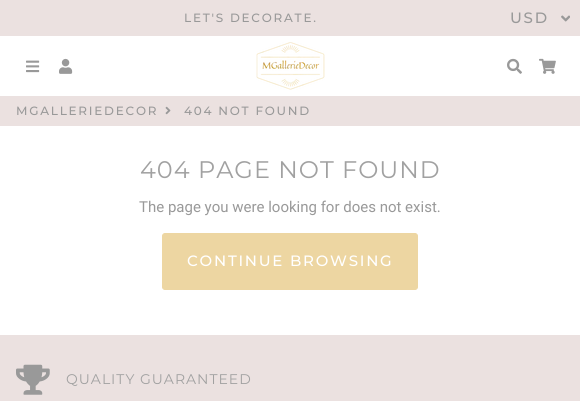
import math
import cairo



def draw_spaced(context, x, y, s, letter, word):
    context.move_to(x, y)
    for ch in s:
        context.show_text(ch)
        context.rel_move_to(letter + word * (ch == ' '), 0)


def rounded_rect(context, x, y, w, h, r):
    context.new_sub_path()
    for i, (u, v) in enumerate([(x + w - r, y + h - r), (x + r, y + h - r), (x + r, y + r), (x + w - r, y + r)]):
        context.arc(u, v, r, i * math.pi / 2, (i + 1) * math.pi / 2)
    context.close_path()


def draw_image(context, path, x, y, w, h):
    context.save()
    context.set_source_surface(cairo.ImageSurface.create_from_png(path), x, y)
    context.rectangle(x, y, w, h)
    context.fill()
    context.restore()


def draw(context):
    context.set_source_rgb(1, 1, 1)
    context.paint()
    context.set_source_rgb(235 / 255, 225 / 255, 224 / 255)
    context.rectangle(0, 0, 580, 36)
    context.fill()
    draw_image(context, "images/1.png", 561, 15, 9, 7)
    draw_image(context, "images/2.png", 26, 60, 14, 13)
    draw_image(context, "images/3.png", 59, 58, 14, 16)
    draw_image(context, "images/4.png", 256, 42, 69, 48)
    draw_image(context, "images/5.png", 507, 58, 15, 16)
    draw_image(context, "images/6.png", 539, 58, 17, 16)
    context.rectangle(0, 96, 580, 30)
    context.fill()
    draw_image(context, "images/7.png", 165, 106, 6, 9)
    context.set_source_rgb(237 / 255, 214 / 255, 162 / 255)
    rounded_rect(context, 162.5, 233.5, 255, 56, 2.5)
    context.fill_preserve()
    context.set_line_width(1)
    context.stroke()
    context.set_source_rgb(235 / 255, 225 / 255, 224 / 255)
    context.rectangle(0, 335, 580, 66)
    context.fill()
    draw_image(context, "images/8.png", 16, 364, 34, 31)
    context.select_font_face("Montserrat Medium")
    context.set_font_size(12)
    context.set_source_rgb(153 / 255, 153 / 255, 153 / 255)
    draw_spaced(context, 184, 22, "LET'S DECORATE.", 1.75, 0)
    context.set_font_size(15)
    draw_spaced(context, 510, 23, "USD", 1.75, 0)
    context.set_font_size(12)
    draw_spaced(context, 16, 115, "MGALLERIEDECOR", 1.75, 0)
    draw_spaced(context, 184, 115, "404 NOT FOUND", 1.75, 0)
    context.select_font_face("Montserrat")
    context.set_font_size(24)
    context.set_source_rgb(161 / 255, 161 / 255, 161 / 255)
    draw_spaced(context, 140, 178, "404 PAGE NOT FOUND", 1, 0)
    context.select_font_face("Roboto")
    context.set_font_size(15)
    context.set_source_rgb(153 / 255, 153 / 255, 153 / 255)
    context.move_to(139, 212)
    context.show_text("The page you were looking for does not exist.")
    context.select_font_face("Montserrat Medium")
    context.set_source_rgb(1, 1, 1)
    draw_spaced(context, 187, 266, "CONTINUE BROWSING", 1.75, 0)
    context.select_font_face("Montserrat")
    context.set_font_size(14)
    context.set_source_rgb(161 / 255, 161 / 255, 161 / 255)
    draw_spaced(context, 66, 384, "QUALITY GUARANTEED", 1, 0)


surface = cairo.ImageSurface(cairo.Format.RGB24, 580, 401)
context = cairo.Context(surface)
options = cairo.FontOptions()
options.set_hint_metrics(cairo.HintMetrics.OFF)
options.set_hint_style(cairo.HintStyle.NONE)
context.set_font_options(options)
context.set_miter_limit(4)
draw(context)
surface.write_to_png("out.png")
